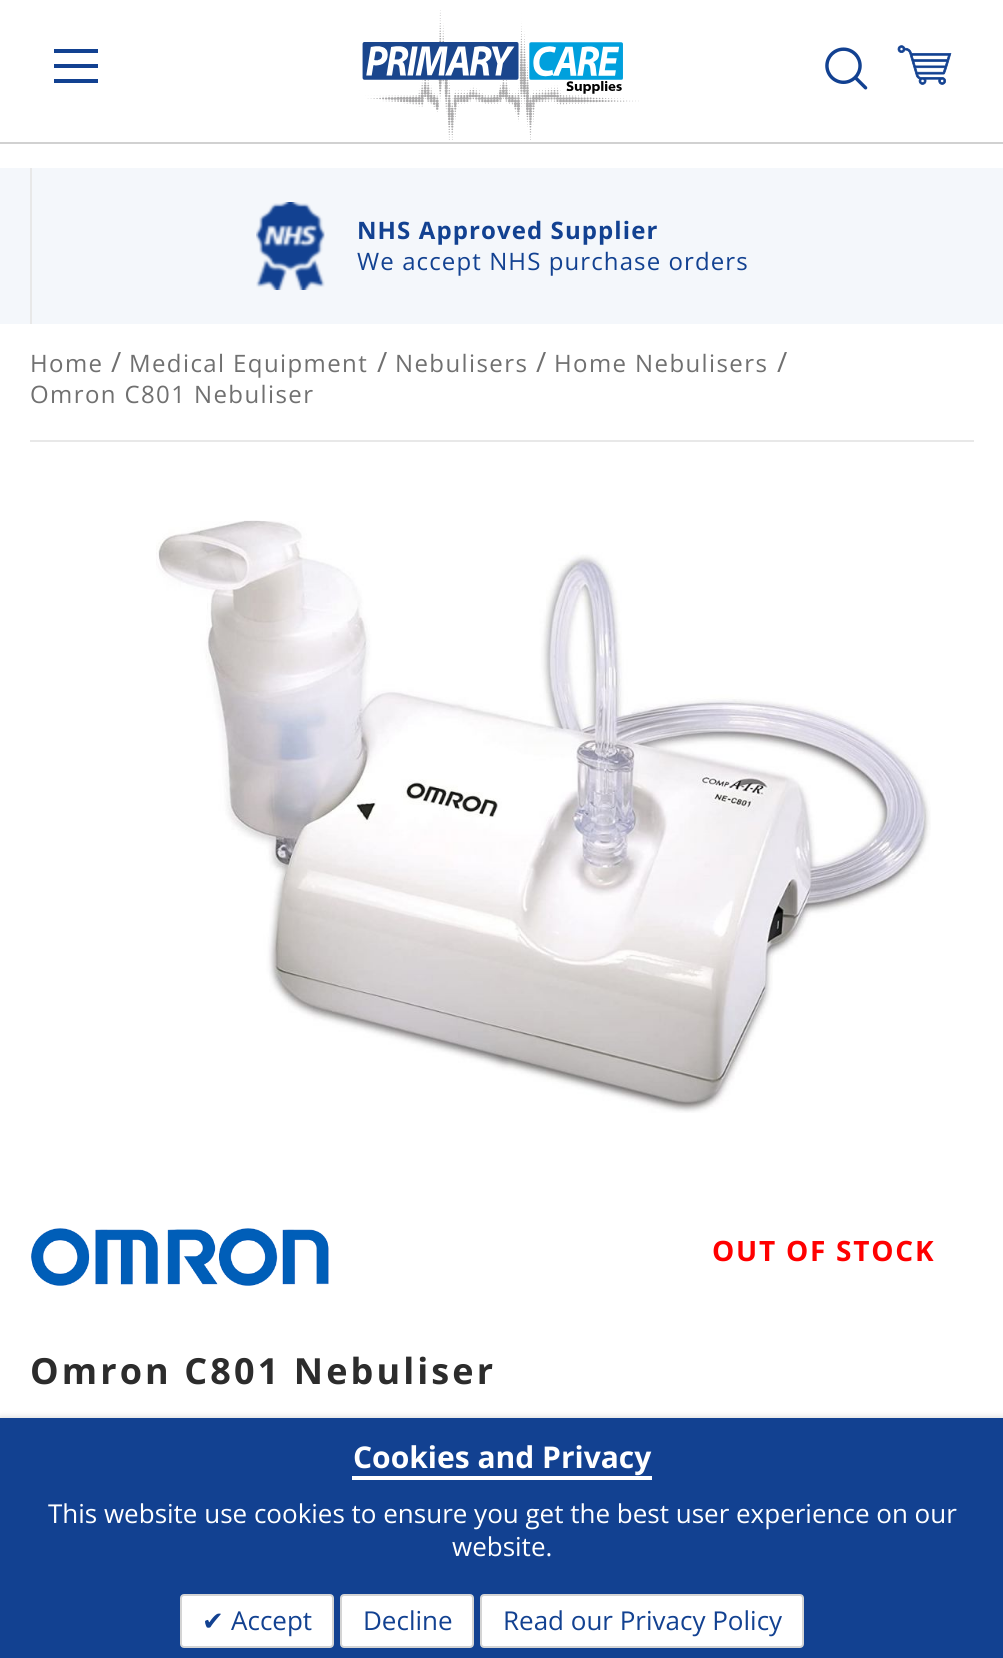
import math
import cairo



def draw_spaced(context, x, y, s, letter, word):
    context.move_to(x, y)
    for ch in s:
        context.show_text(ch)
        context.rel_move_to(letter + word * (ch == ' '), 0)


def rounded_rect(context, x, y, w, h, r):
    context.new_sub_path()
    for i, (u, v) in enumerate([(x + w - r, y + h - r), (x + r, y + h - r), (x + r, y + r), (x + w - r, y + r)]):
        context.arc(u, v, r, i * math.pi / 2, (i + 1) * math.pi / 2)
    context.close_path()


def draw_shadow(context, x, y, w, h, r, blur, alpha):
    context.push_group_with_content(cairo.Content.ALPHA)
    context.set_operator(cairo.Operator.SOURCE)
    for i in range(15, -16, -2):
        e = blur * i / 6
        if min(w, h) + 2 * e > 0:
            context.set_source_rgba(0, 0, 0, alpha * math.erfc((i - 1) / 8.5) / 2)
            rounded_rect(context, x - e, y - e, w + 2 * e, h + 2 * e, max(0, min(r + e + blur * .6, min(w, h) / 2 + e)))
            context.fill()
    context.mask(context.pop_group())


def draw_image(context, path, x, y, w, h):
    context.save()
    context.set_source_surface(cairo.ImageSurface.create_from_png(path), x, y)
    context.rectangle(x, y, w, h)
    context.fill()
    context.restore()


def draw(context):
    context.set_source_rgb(1, 1, 1)
    context.paint()
    context.set_source_rgb(209 / 255, 209 / 255, 209 / 255)
    context.rectangle(0, 142, 1003, 2)
    context.fill()
    context.set_source_rgb(18 / 255, 65 / 255, 145 / 255)
    context.new_path()
    context.move_to(54, 49)
    context.line_to(54, 53)
    context.line_to(98, 53)
    context.line_to(98, 49)
    context.close_path()
    context.move_to(54, 68)
    context.line_to(98, 68)
    context.line_to(98, 64)
    context.line_to(54, 64)
    context.close_path()
    context.move_to(54, 83)
    context.line_to(98, 83)
    context.line_to(98, 79)
    context.line_to(54, 79)
    context.close_path()
    context.fill()
    draw_image(context, "images/1.png", 362, 10, 277, 130)
    draw_image(context, "images/2.png", 825, 47, 43, 43)
    draw_image(context, "images/3.png", 897, 45, 55, 40)
    context.set_source_rgb(244 / 255, 247 / 255, 251 / 255)
    context.rectangle(0, 168, 1003, 156)
    context.fill()
    context.set_source_rgb(232 / 255, 232 / 255, 232 / 255)
    context.rectangle(30, 168, 2, 156)
    context.fill()
    draw_image(context, "images/4.png", 256, 202, 69, 88)
    context.rectangle(30, 440, 944, 2)
    context.fill()
    draw_image(context, "images/5.png", 156, 520, 775, 593)
    draw_image(context, "images/6.png", 30, 1228, 299, 58)
    context.set_source_rgb(0, 0, 0)
    draw_shadow(context, 0, 1422, 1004, 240, 0, 5, 0.47)
    context.set_source_rgb(18 / 255, 65 / 255, 145 / 255)
    context.rectangle(0, 1418, 1003, 240)
    context.fill()
    context.set_source_rgb(1, 1, 1)
    context.rectangle(352, 1476, 300, 4)
    context.fill()
    rounded_rect(context, 181, 1595, 152, 52, 3)
    context.fill_preserve()
    context.set_source_rgb(212 / 255, 212 / 255, 212 / 255)
    context.stroke()
    context.set_source_rgb(1, 1, 1)
    rounded_rect(context, 341, 1595, 132, 52, 3)
    context.fill_preserve()
    context.set_source_rgb(212 / 255, 212 / 255, 212 / 255)
    context.stroke()
    context.set_source_rgb(1, 1, 1)
    rounded_rect(context, 481, 1595, 322, 52, 3)
    context.fill_preserve()
    context.set_source_rgb(212 / 255, 212 / 255, 212 / 255)
    context.stroke()
    context.select_font_face("Open Sans", cairo.FontSlant.NORMAL, cairo.FontWeight.BOLD)
    context.set_font_size(24)
    context.set_source_rgb(18 / 255, 65 / 255, 145 / 255)
    draw_spaced(context, 357, 239, "NHS Approved Supplier", 1.1, 0)
    context.select_font_face("Open Sans")
    draw_spaced(context, 357, 270, "We accept NHS purchase orders", 1.1, 0)
    context.set_source_rgb(112 / 255, 112 / 255, 112 / 255)
    draw_spaced(context, 30, 372, "Home", 1.4, 0)
    context.set_font_size(28)
    draw_spaced(context, 111, 372, "/", 1.4, 0)
    context.set_font_size(24)
    draw_spaced(context, 129, 372, "Medical Equipment", 1.4, 0)
    context.set_font_size(28)
    draw_spaced(context, 377, 372, "/", 1.4, 0)
    context.set_font_size(24)
    draw_spaced(context, 395, 372, "Nebulisers", 1.4, 0)
    context.set_font_size(28)
    draw_spaced(context, 536, 372, "/", 1.4, 0)
    context.set_font_size(24)
    draw_spaced(context, 554, 372, "Home Nebulisers", 1.4, 0)
    context.set_font_size(28)
    draw_spaced(context, 777, 372, "/", 1.4, 0)
    context.set_font_size(24)
    draw_spaced(context, 30, 403, "Omron C801 Nebuliser", 1.4, 0)
    context.select_font_face("Open Sans", cairo.FontSlant.NORMAL, cairo.FontWeight.BOLD)
    context.set_font_size(28)
    context.set_source_rgb(1, 0, 0)
    draw_spaced(context, 712, 1261, "OUT OF STOCK", 1.75, 0)
    context.set_font_size(36)
    context.set_source_rgb(44 / 255, 44 / 255, 44 / 255)
    draw_spaced(context, 30, 1384, "Omron C801 Nebuliser", 3.1, 0)
    context.set_font_size(30)
    context.set_source_rgb(1, 1, 1)
    context.move_to(353, 1468)
    context.show_text("Cookies and Privacy")
    context.select_font_face("Open Sans")
    context.set_font_size(26)
    context.move_to(48, 1523)
    context.show_text("This website use cookies to ensure you get the best user experience on our")
    context.move_to(452, 1556)
    context.show_text("website.")
    context.select_font_face("DejaVu Sans")
    context.set_source_rgb(18 / 255, 65 / 255, 145 / 255)
    context.move_to(202, 1630)
    context.show_text("✔")
    context.select_font_face("Open Sans")
    context.move_to(231, 1630)
    context.show_text("Accept")
    context.move_to(363, 1630)
    context.show_text("Decline")
    context.move_to(503, 1630)
    context.show_text("Read our Privacy Policy")


surface = cairo.ImageSurface(cairo.Format.RGB24, 1003, 1658)
context = cairo.Context(surface)
options = cairo.FontOptions()
options.set_hint_metrics(cairo.HintMetrics.OFF)
options.set_hint_style(cairo.HintStyle.NONE)
context.set_font_options(options)
context.set_miter_limit(4)
draw(context)
surface.write_to_png("out.png")
